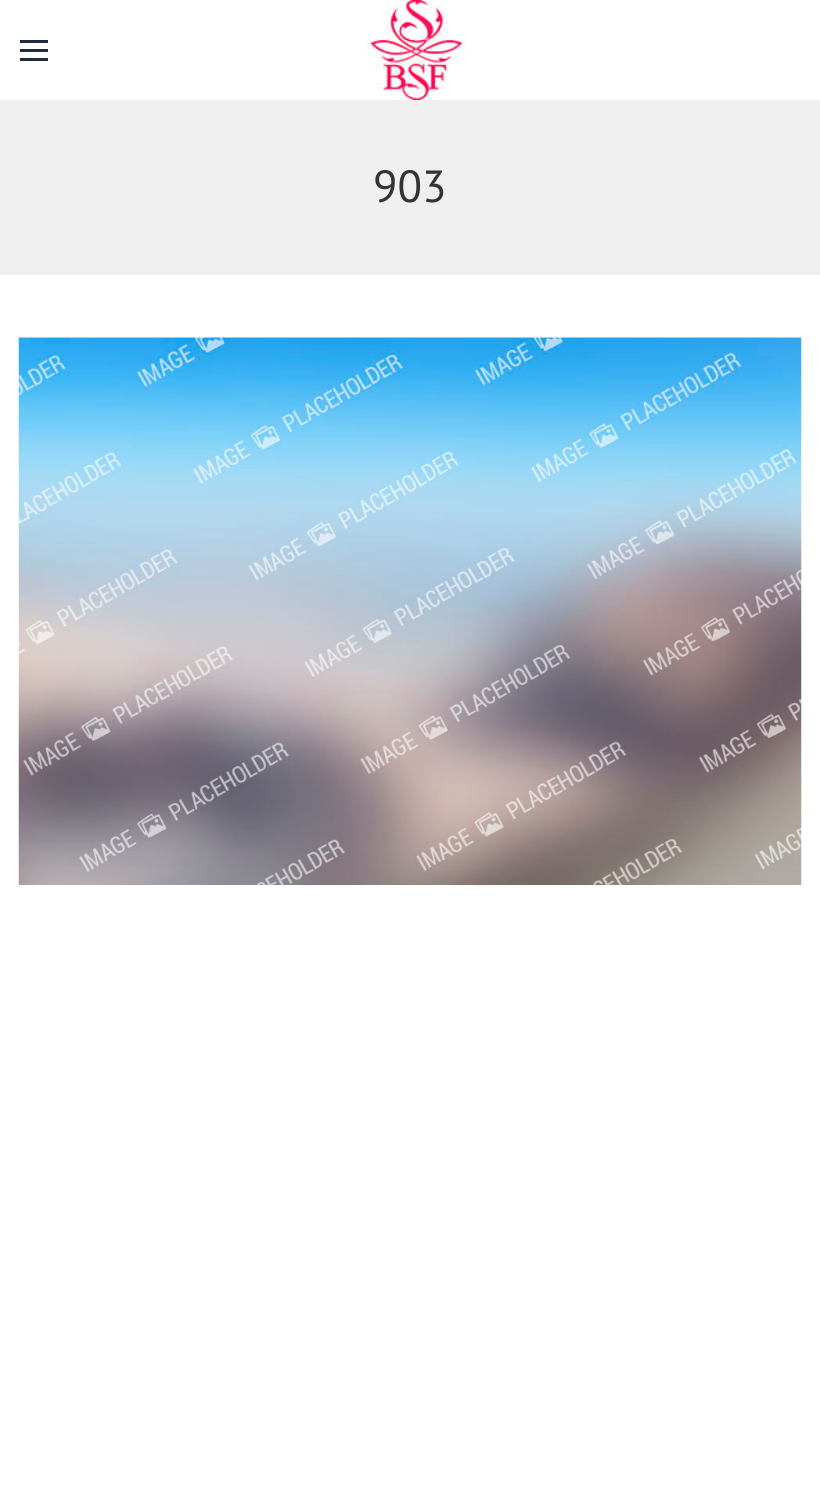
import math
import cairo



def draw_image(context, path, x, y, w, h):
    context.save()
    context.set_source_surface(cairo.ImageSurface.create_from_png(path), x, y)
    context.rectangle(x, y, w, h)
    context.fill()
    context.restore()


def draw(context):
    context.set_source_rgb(1, 1, 1)
    context.paint()
    context.set_source_rgb(32 / 255, 43 / 255, 64 / 255)
    context.rectangle(20, 40, 28, 3)
    context.fill()
    context.rectangle(20, 49, 28, 3)
    context.fill()
    context.rectangle(20, 58, 28, 3)
    context.fill()
    draw_image(context, "images/1.png", 366, 0, 100, 100)
    context.set_source_rgb(239 / 255, 239 / 255, 239 / 255)
    context.rectangle(0, 100, 820, 175)
    context.fill()
    draw_image(context, "images/2.png", 18, 337, 784, 548)
    context.select_font_face("PT Sans")
    context.set_font_size(45)
    context.set_source_rgb(51 / 255, 51 / 255, 51 / 255)
    context.move_to(373, 202)
    context.show_text("903")


surface = cairo.ImageSurface(cairo.Format.RGB24, 820, 1505)
context = cairo.Context(surface)
options = cairo.FontOptions()
options.set_hint_metrics(cairo.HintMetrics.OFF)
options.set_hint_style(cairo.HintStyle.NONE)
context.set_font_options(options)
context.set_miter_limit(4)
draw(context)
surface.write_to_png("out.png")
